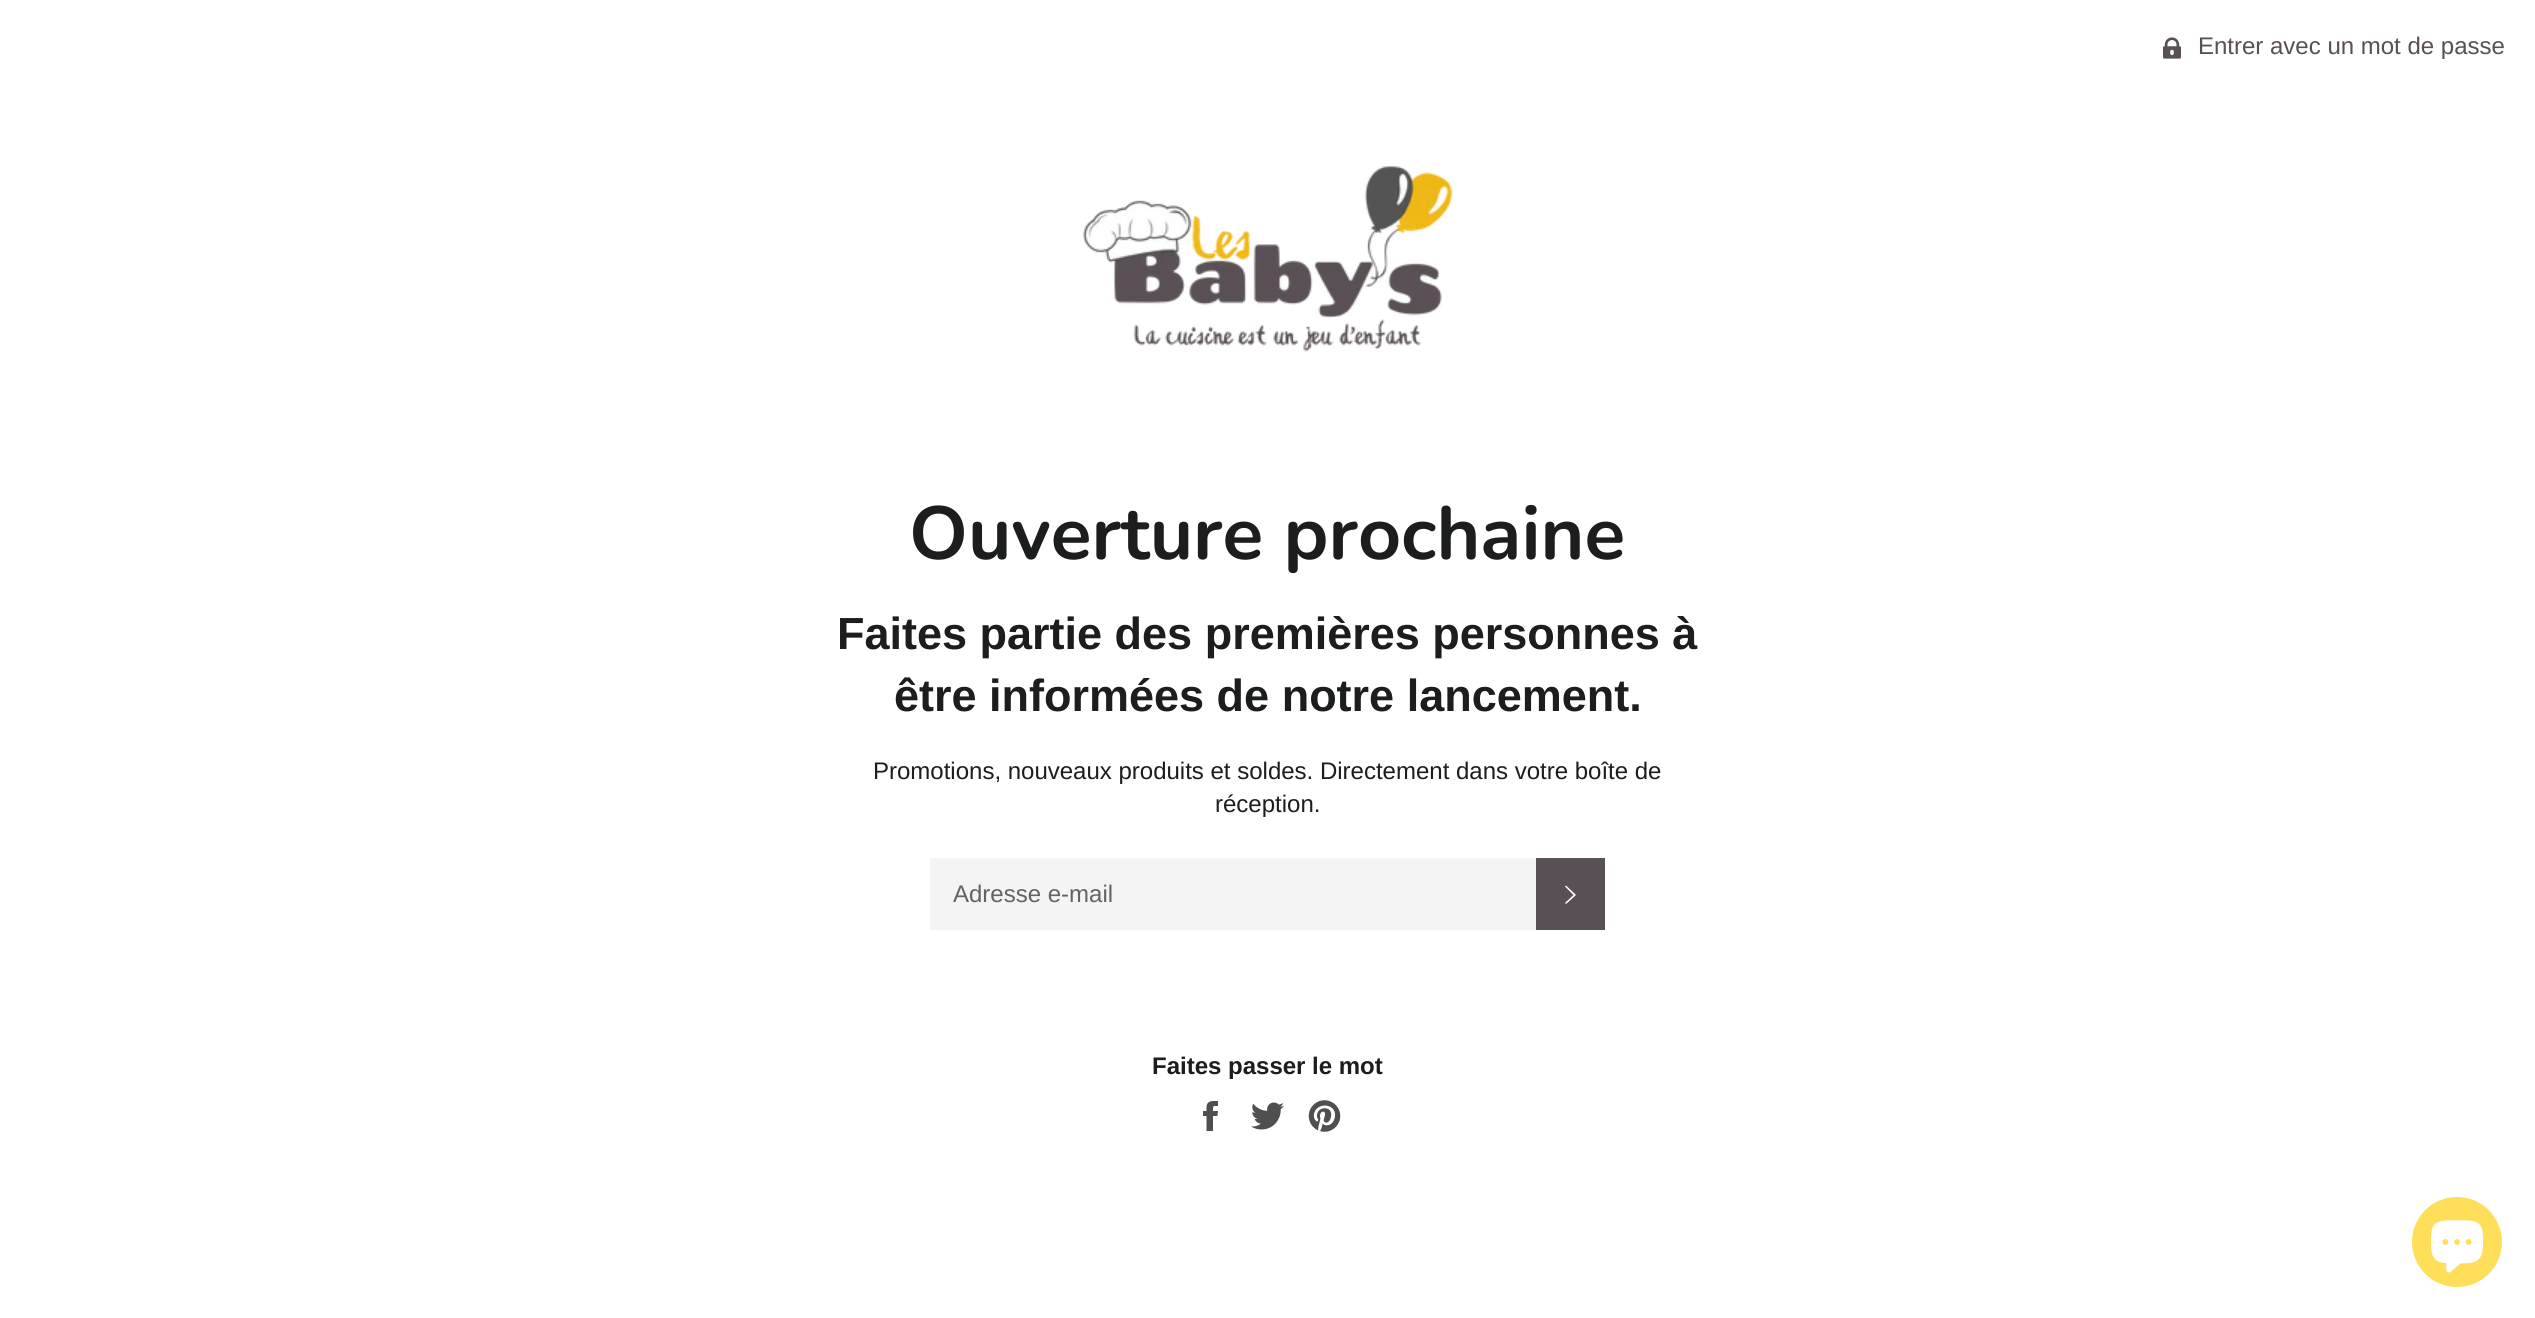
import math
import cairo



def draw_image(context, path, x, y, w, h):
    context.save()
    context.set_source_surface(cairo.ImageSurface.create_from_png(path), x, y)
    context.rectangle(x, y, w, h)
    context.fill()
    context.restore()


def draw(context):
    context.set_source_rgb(1, 1, 1)
    context.paint()
    draw_image(context, "images/1.png", 2163, 37, 18, 22)
    draw_image(context, "images/2.png", 1082, 166, 371, 186)
    context.set_source_rgb(244 / 255, 244 / 255, 244 / 255)
    context.rectangle(930, 858, 606, 72)
    context.fill()
    context.set_source_rgb(89 / 255, 80 / 255, 85 / 255)
    context.rectangle(1536, 858, 69, 72)
    context.fill()
    context.set_source_rgb(1, 1, 1)
    context.new_path()
    context.move_to(1565, 886.5)
    context.line_to(1566, 885.5)
    context.line_to(1576, 895)
    context.line_to(1566, 904)
    context.line_to(1565, 903)
    context.line_to(1573.5, 895)
    context.close_path()
    context.fill()
    draw_image(context, "images/3.png", 1203, 1101, 15, 30)
    draw_image(context, "images/4.png", 1251, 1102, 33, 28)
    draw_image(context, "images/5.png", 1308, 1100, 33, 32)
    context.set_source_rgb(1, 222 / 255, 89 / 255)
    context.arc(2457, 1242, 45, 0, 2 * math.pi)
    context.fill()
    draw_image(context, "images/6.png", 2430, 1220, 54, 53)
    context.select_font_face("Arimo")
    context.set_font_size(24)
    context.set_source_rgb(89 / 255, 80 / 255, 85 / 255)
    context.move_to(2198, 54)
    context.show_text("Entrer avec un mot de passe")
    context.select_font_face("Nunito", cairo.FontSlant.NORMAL, cairo.FontWeight.BOLD)
    context.set_font_size(75)
    context.set_source_rgb(28 / 255, 29 / 255, 29 / 255)
    context.move_to(909, 559)
    context.show_text("Ouverture prochaine")
    context.select_font_face("Arimo", cairo.FontSlant.NORMAL, cairo.FontWeight.BOLD)
    context.set_font_size(45)
    context.move_to(837, 649)
    context.show_text("Faites partie des premières personnes à")
    context.move_to(894, 711)
    context.show_text("être informées de notre lancement.")
    context.select_font_face("Arimo")
    context.set_font_size(24)
    context.move_to(873, 779)
    context.show_text("Promotions, nouveaux produits et soldes. Directement dans votre boîte de")
    context.move_to(1215, 812)
    context.show_text("réception.")
    context.set_source_rgb(99 / 255, 99 / 255, 99 / 255)
    context.move_to(953, 902)
    context.show_text("Adresse e-mail")
    context.select_font_face("Arimo", cairo.FontSlant.NORMAL, cairo.FontWeight.BOLD)
    context.set_source_rgb(28 / 255, 29 / 255, 29 / 255)
    context.move_to(1152, 1074)
    context.show_text("Faites passer le mot")


surface = cairo.ImageSurface(cairo.Format.RGB24, 2535, 1318)
context = cairo.Context(surface)
options = cairo.FontOptions()
options.set_hint_metrics(cairo.HintMetrics.OFF)
options.set_hint_style(cairo.HintStyle.NONE)
context.set_font_options(options)
context.set_miter_limit(4)
draw(context)
surface.write_to_png("out.png")
